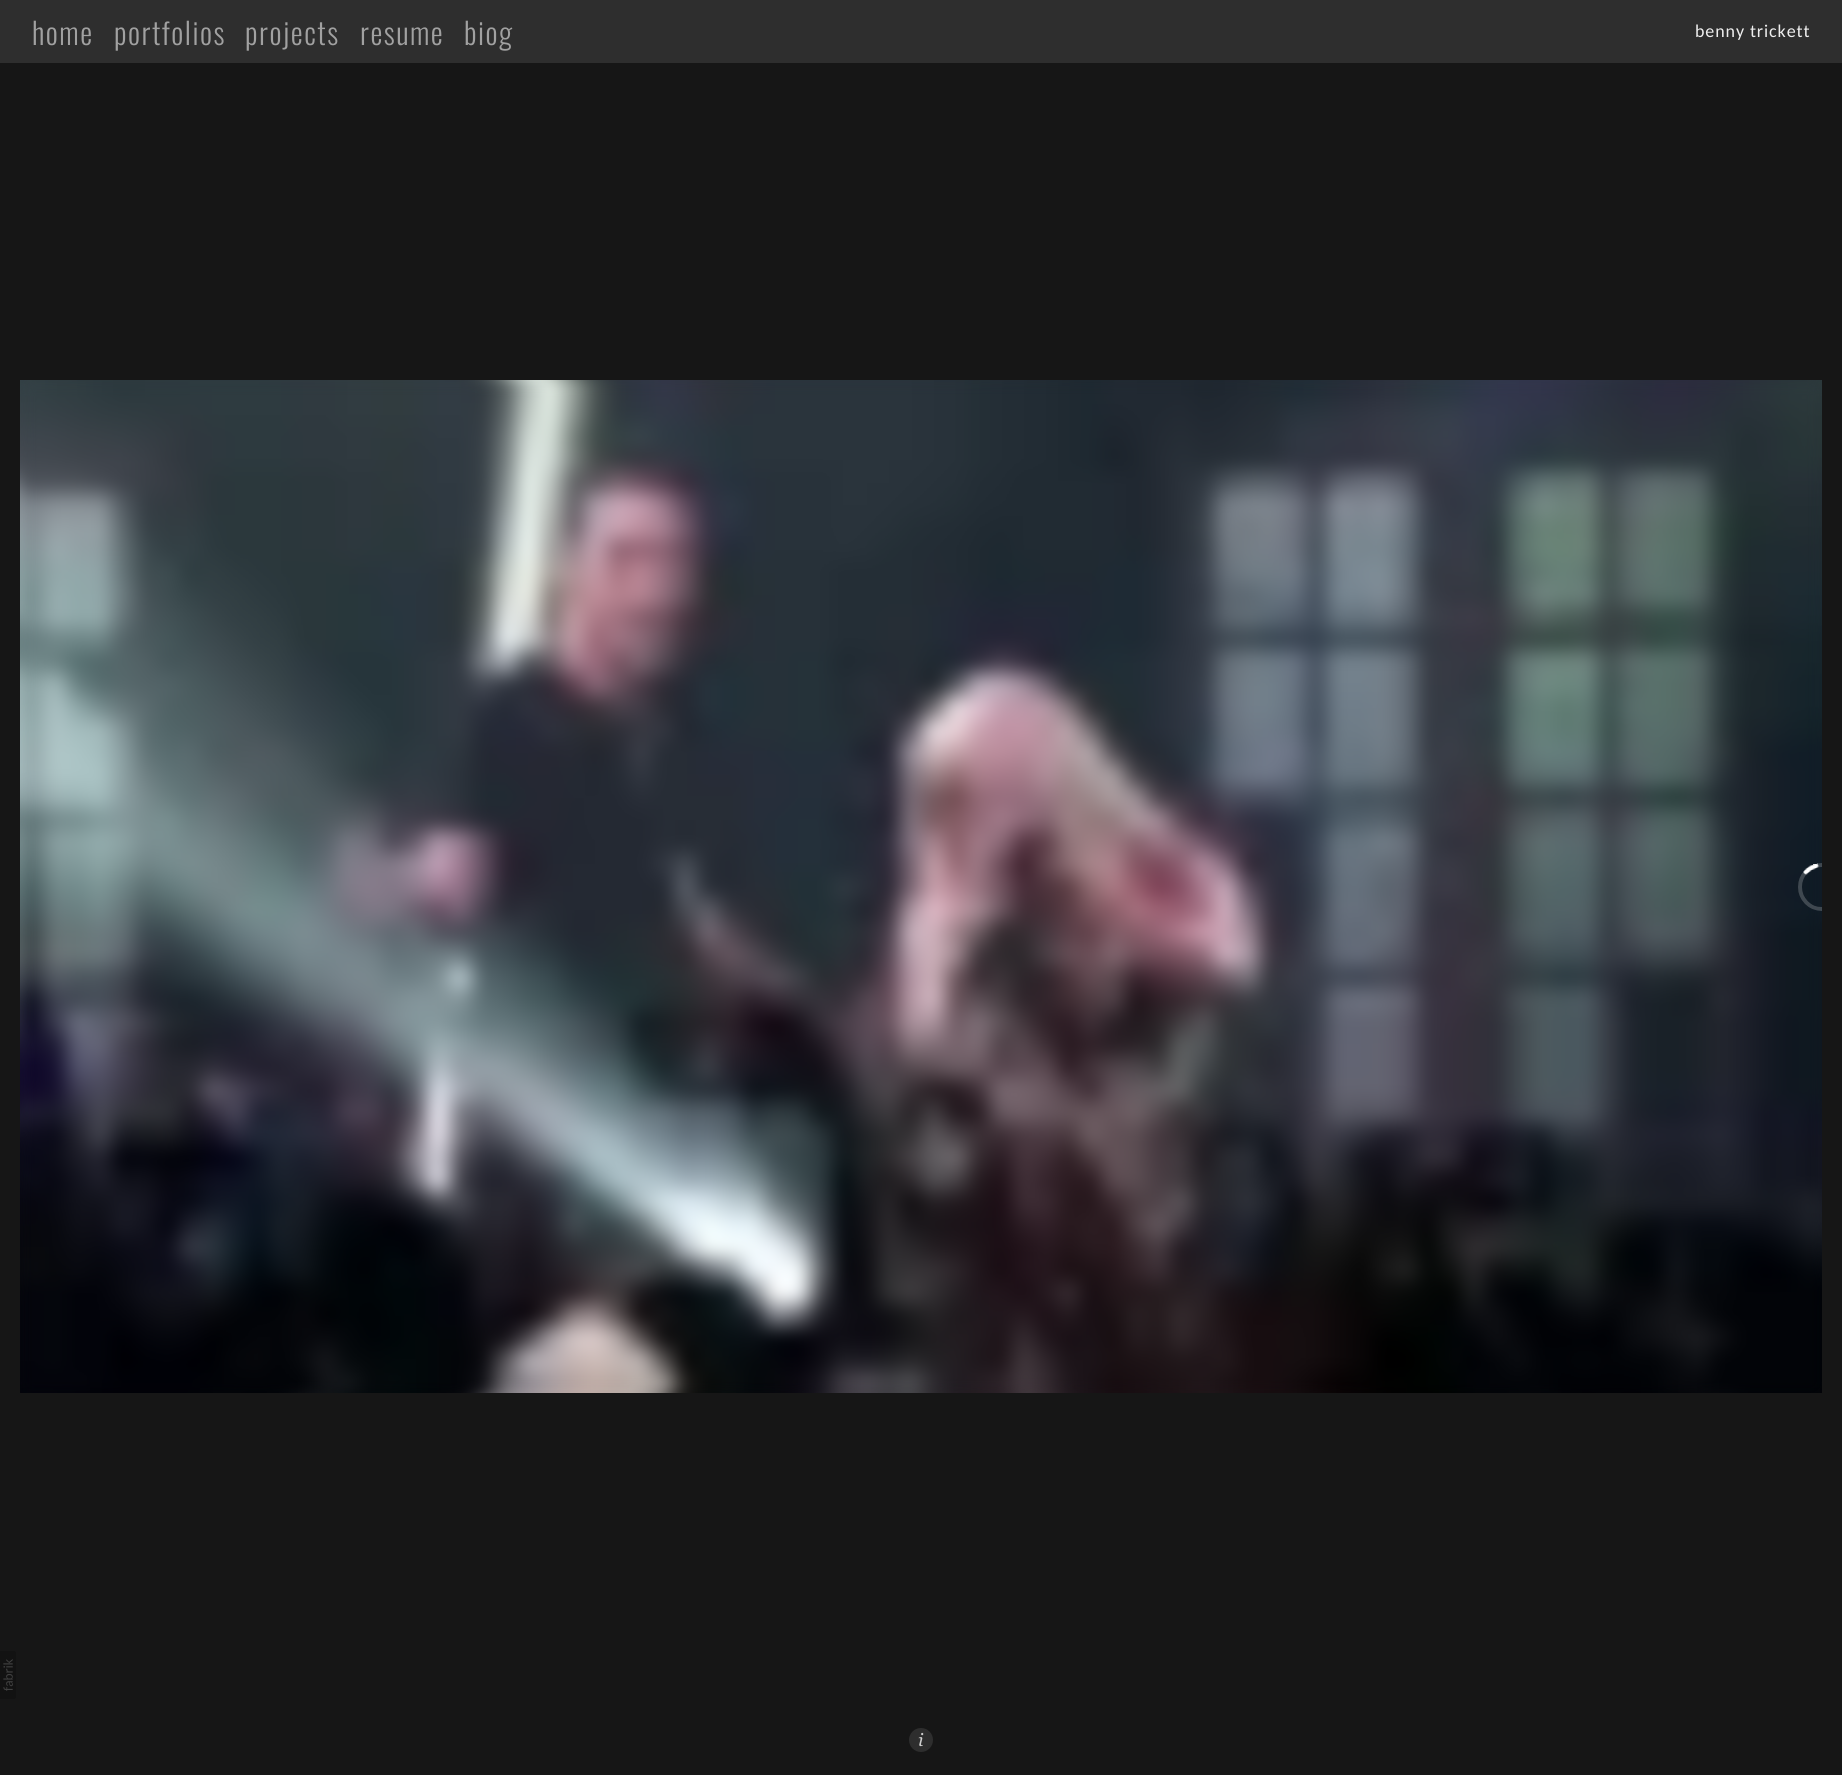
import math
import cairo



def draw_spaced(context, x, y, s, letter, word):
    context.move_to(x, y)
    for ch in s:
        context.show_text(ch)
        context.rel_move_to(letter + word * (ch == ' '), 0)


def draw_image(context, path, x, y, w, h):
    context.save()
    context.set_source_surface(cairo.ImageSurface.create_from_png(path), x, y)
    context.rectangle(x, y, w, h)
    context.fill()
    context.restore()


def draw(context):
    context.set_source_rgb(22 / 255, 22 / 255, 22 / 255)
    context.paint()
    context.set_source_rgb(46 / 255, 46 / 255, 46 / 255)
    context.rectangle(0, 0, 1842, 63)
    context.fill()
    draw_image(context, "images/1.png", 0, 1651, 16, 48)
    draw_image(context, "images/2.png", 20, 380, 1802, 1013)
    context.arc(921, 1740, 12, 0, 2 * math.pi)
    context.fill()
    draw_image(context, "images/3.png", 918, 1732, 6, 15)
    context.select_font_face("Oswald Light")
    context.set_font_size(30)
    context.set_source_rgb(161 / 255, 161 / 255, 161 / 255)
    draw_spaced(context, 32, 45, "home", 1.5, 0)
    draw_spaced(context, 114, 45, "portfolios", 1.5, 0)
    draw_spaced(context, 245, 45, "projects", 1.5, 0)
    draw_spaced(context, 360, 45, "resume", 1.5, 0)
    draw_spaced(context, 464, 45, "biog", 1.5, 0)
    context.select_font_face("Carlito")
    context.set_font_size(18)
    context.set_source_rgb(238 / 255, 238 / 255, 238 / 255)
    draw_spaced(context, 1695, 37, "benny trickett", 0.9, 0)


surface = cairo.ImageSurface(cairo.Format.RGB24, 1842, 1775)
context = cairo.Context(surface)
options = cairo.FontOptions()
options.set_hint_metrics(cairo.HintMetrics.OFF)
options.set_hint_style(cairo.HintStyle.NONE)
context.set_font_options(options)
context.set_miter_limit(4)
draw(context)
surface.write_to_png("out.png")
